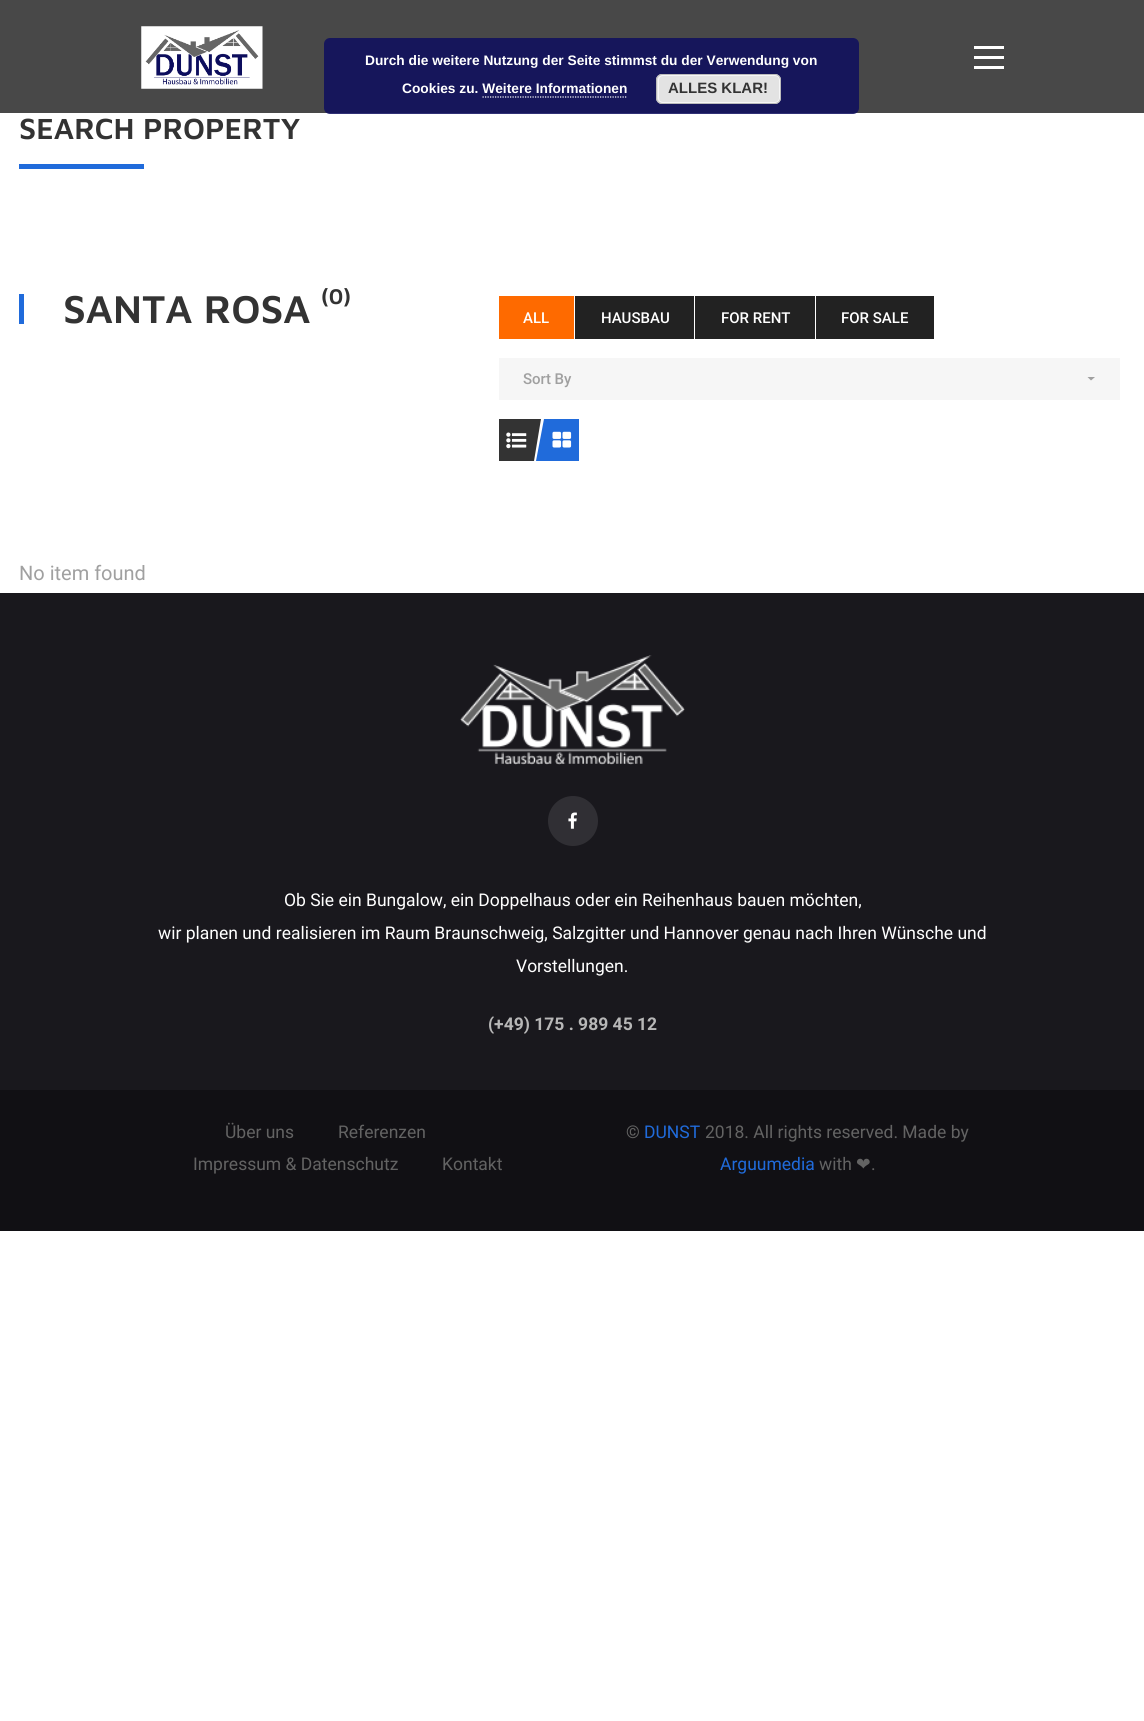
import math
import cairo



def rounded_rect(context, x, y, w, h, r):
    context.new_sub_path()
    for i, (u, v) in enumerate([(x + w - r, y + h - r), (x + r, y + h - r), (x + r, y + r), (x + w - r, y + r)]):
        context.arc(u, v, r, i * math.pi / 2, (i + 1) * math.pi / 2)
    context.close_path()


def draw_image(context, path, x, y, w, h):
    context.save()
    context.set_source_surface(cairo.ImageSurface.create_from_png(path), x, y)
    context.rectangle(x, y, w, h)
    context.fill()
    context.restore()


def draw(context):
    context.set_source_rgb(1, 1, 1)
    context.paint()
    context.set_source_rgb(72 / 255, 72 / 255, 72 / 255)
    context.rectangle(0, 0, 1144, 113)
    context.fill()
    context.set_source_rgba(13 / 255, 13 / 255, 94 / 255, 0.85)
    rounded_rect(context, 324, 38, 535, 76, 6)
    context.fill()
    context.set_source_rgb(227 / 255, 227 / 255, 227 / 255)
    rounded_rect(context, 656, 74, 125, 30, 6)
    context.fill()
    rounded_rect(context, 658.5, 75.5, 121, 27, 4.5)
    context.set_source_rgb(246 / 255, 246 / 255, 246 / 255)
    context.set_line_width(1)
    context.stroke()
    rounded_rect(context, 656.5, 74.5, 124, 29, 5.5)
    context.set_source_rgb(187 / 255, 187 / 255, 187 / 255)
    context.stroke()
    context.new_path()
    context.move_to(482.5, 97)
    context.line_to(627.5, 97)
    context.set_source_rgb(1, 1, 1)
    context.set_line_width(1.2)
    context.set_dash([1.25, 1.25])
    context.stroke()
    draw_image(context, "images/1.png", 141, 26, 122, 63)
    context.rectangle(974, 46, 30, 3)
    context.fill()
    context.rectangle(974, 56, 30, 3)
    context.fill()
    context.rectangle(974, 66, 30, 3)
    context.fill()
    context.set_source_rgb(32 / 255, 107 / 255, 219 / 255)
    context.rectangle(19, 164, 125, 5)
    context.fill()
    context.rectangle(19, 294, 5, 30)
    context.fill()
    context.set_source_rgb(254 / 255, 106 / 255, 0)
    context.rectangle(499, 296, 75, 43)
    context.fill()
    context.set_source_rgb(34 / 255, 34 / 255, 34 / 255)
    context.rectangle(575, 296, 119, 43)
    context.fill()
    context.rectangle(695, 296, 120, 43)
    context.fill()
    context.rectangle(816, 296, 118, 43)
    context.fill()
    context.set_source_rgb(246 / 255, 246 / 255, 246 / 255)
    context.rectangle(499, 358, 621, 42)
    context.fill()
    context.set_source_rgb(160 / 255, 160 / 255, 160 / 255)
    context.new_path()
    context.move_to(1087.5, 377)
    context.line_to(1095, 377)
    context.line_to(1091, 380.5)
    context.close_path()
    context.fill()
    context.set_source_rgb(51 / 255, 51 / 255, 51 / 255)
    context.rectangle(499, 419, 35, 42)
    context.fill()
    draw_image(context, "images/2.png", 506, 432, 21, 17)
    context.new_path()
    context.move_to(534, 419)
    context.line_to(541, 419)
    context.line_to(534, 461)
    context.close_path()
    context.fill()
    context.set_source_rgb(32 / 255, 107 / 255, 219 / 255)
    context.rectangle(544, 419, 35, 42)
    context.fill()
    context.new_path()
    context.move_to(544, 461)
    context.line_to(536, 461)
    context.line_to(544, 419)
    context.close_path()
    context.fill()
    draw_image(context, "images/3.png", 552, 431, 20, 17)
    context.set_source_rgb(25 / 255, 24 / 255, 29 / 255)
    context.rectangle(0, 593, 1144, 497)
    context.fill()
    draw_image(context, "images/4.png", 460, 655, 225, 110)
    context.set_source_rgb(48 / 255, 47 / 255, 52 / 255)
    context.arc(573, 821, 25, 0, 2 * math.pi)
    context.fill()
    draw_image(context, "images/5.png", 568, 812, 9, 17)
    context.set_source_rgb(17 / 255, 16 / 255, 20 / 255)
    context.rectangle(0, 1090, 1144, 141)
    context.fill()
    context.select_font_face("Liberation Sans", cairo.FontSlant.NORMAL, cairo.FontWeight.BOLD)
    context.set_font_size(13.75)
    context.set_source_rgb(1, 1, 1)
    context.move_to(365, 65)
    context.show_text("Durch die weitere Nutzung der Seite stimmst du der Verwendung von")
    context.move_to(402, 93)
    context.show_text("Cookies zu. Weitere Informationen")
    context.set_font_size(15)
    context.set_source_rgb(51 / 255, 51 / 255, 51 / 255)
    context.move_to(668, 93)
    context.show_text("ALLES KLAR!")
    context.select_font_face("Maven Pro SemiBold")
    context.set_font_size(30)
    context.move_to(19, 139)
    context.show_text("SEARCH PROPERTY")
    context.set_font_size(40)
    context.move_to(63, 323)
    context.show_text("SANTA ROSA")
    context.set_font_size(22)
    context.move_to(321, 304)
    context.show_text("(0)")
    context.select_font_face("Roboto Medium")
    context.set_font_size(15)
    context.set_source_rgb(1, 1, 1)
    context.move_to(523, 323)
    context.show_text("ALL")
    context.move_to(601, 323)
    context.show_text("HAUSBAU")
    context.move_to(721, 323)
    context.show_text("FOR RENT")
    context.move_to(841, 323)
    context.show_text("FOR SALE")
    context.set_source_rgb(160 / 255, 160 / 255, 160 / 255)
    context.move_to(523, 384)
    context.show_text("Sort By")
    context.select_font_face("Roboto")
    context.set_font_size(20)
    context.move_to(19, 580)
    context.show_text("No item found")
    context.set_font_size(17.5)
    context.set_source_rgb(1, 1, 1)
    context.move_to(284, 906)
    context.show_text("Ob Sie ein Bungalow, ein Doppelhaus oder ein Reihenhaus bauen möchten,")
    context.move_to(158, 939)
    context.show_text("wir planen und realisieren im Raum Braunschweig, Salzgitter und Hannover genau nach Ihren Wünsche und")
    context.move_to(516, 972)
    context.show_text("Vorstellungen.")
    context.select_font_face("Roboto", cairo.FontSlant.NORMAL, cairo.FontWeight.BOLD)
    context.set_source_rgb(183 / 255, 183 / 255, 183 / 255)
    context.move_to(488, 1030)
    context.show_text("(+49) 175 . 989 45 12")
    context.select_font_face("Roboto")
    context.set_source_rgb(99 / 255, 99 / 255, 99 / 255)
    context.move_to(225, 1138)
    context.show_text("Über uns")
    context.move_to(338, 1138)
    context.show_text("Referenzen")
    context.move_to(193, 1170)
    context.show_text("Impressum & Datenschutz")
    context.move_to(442, 1170)
    context.show_text("Kontakt")
    context.move_to(626, 1138)
    context.show_text("©")
    context.set_source_rgb(32 / 255, 107 / 255, 219 / 255)
    context.move_to(644, 1138)
    context.show_text("DUNST")
    context.set_source_rgb(99 / 255, 99 / 255, 99 / 255)
    context.move_to(705, 1138)
    context.show_text("2018. All rights reserved. Made by")
    context.set_source_rgb(32 / 255, 107 / 255, 219 / 255)
    context.move_to(720, 1170)
    context.show_text("Arguumedia")
    context.set_source_rgb(99 / 255, 99 / 255, 99 / 255)
    context.move_to(819, 1170)
    context.show_text("with")
    context.select_font_face("DejaVu Sans")
    context.move_to(856, 1170)
    context.show_text("❤")
    context.select_font_face("Roboto")
    context.move_to(871, 1170)
    context.show_text(".")


surface = cairo.ImageSurface(cairo.Format.RGB24, 1144, 1721)
context = cairo.Context(surface)
options = cairo.FontOptions()
options.set_hint_metrics(cairo.HintMetrics.OFF)
options.set_hint_style(cairo.HintStyle.NONE)
context.set_font_options(options)
context.set_miter_limit(4)
draw(context)
surface.write_to_png("out.png")
